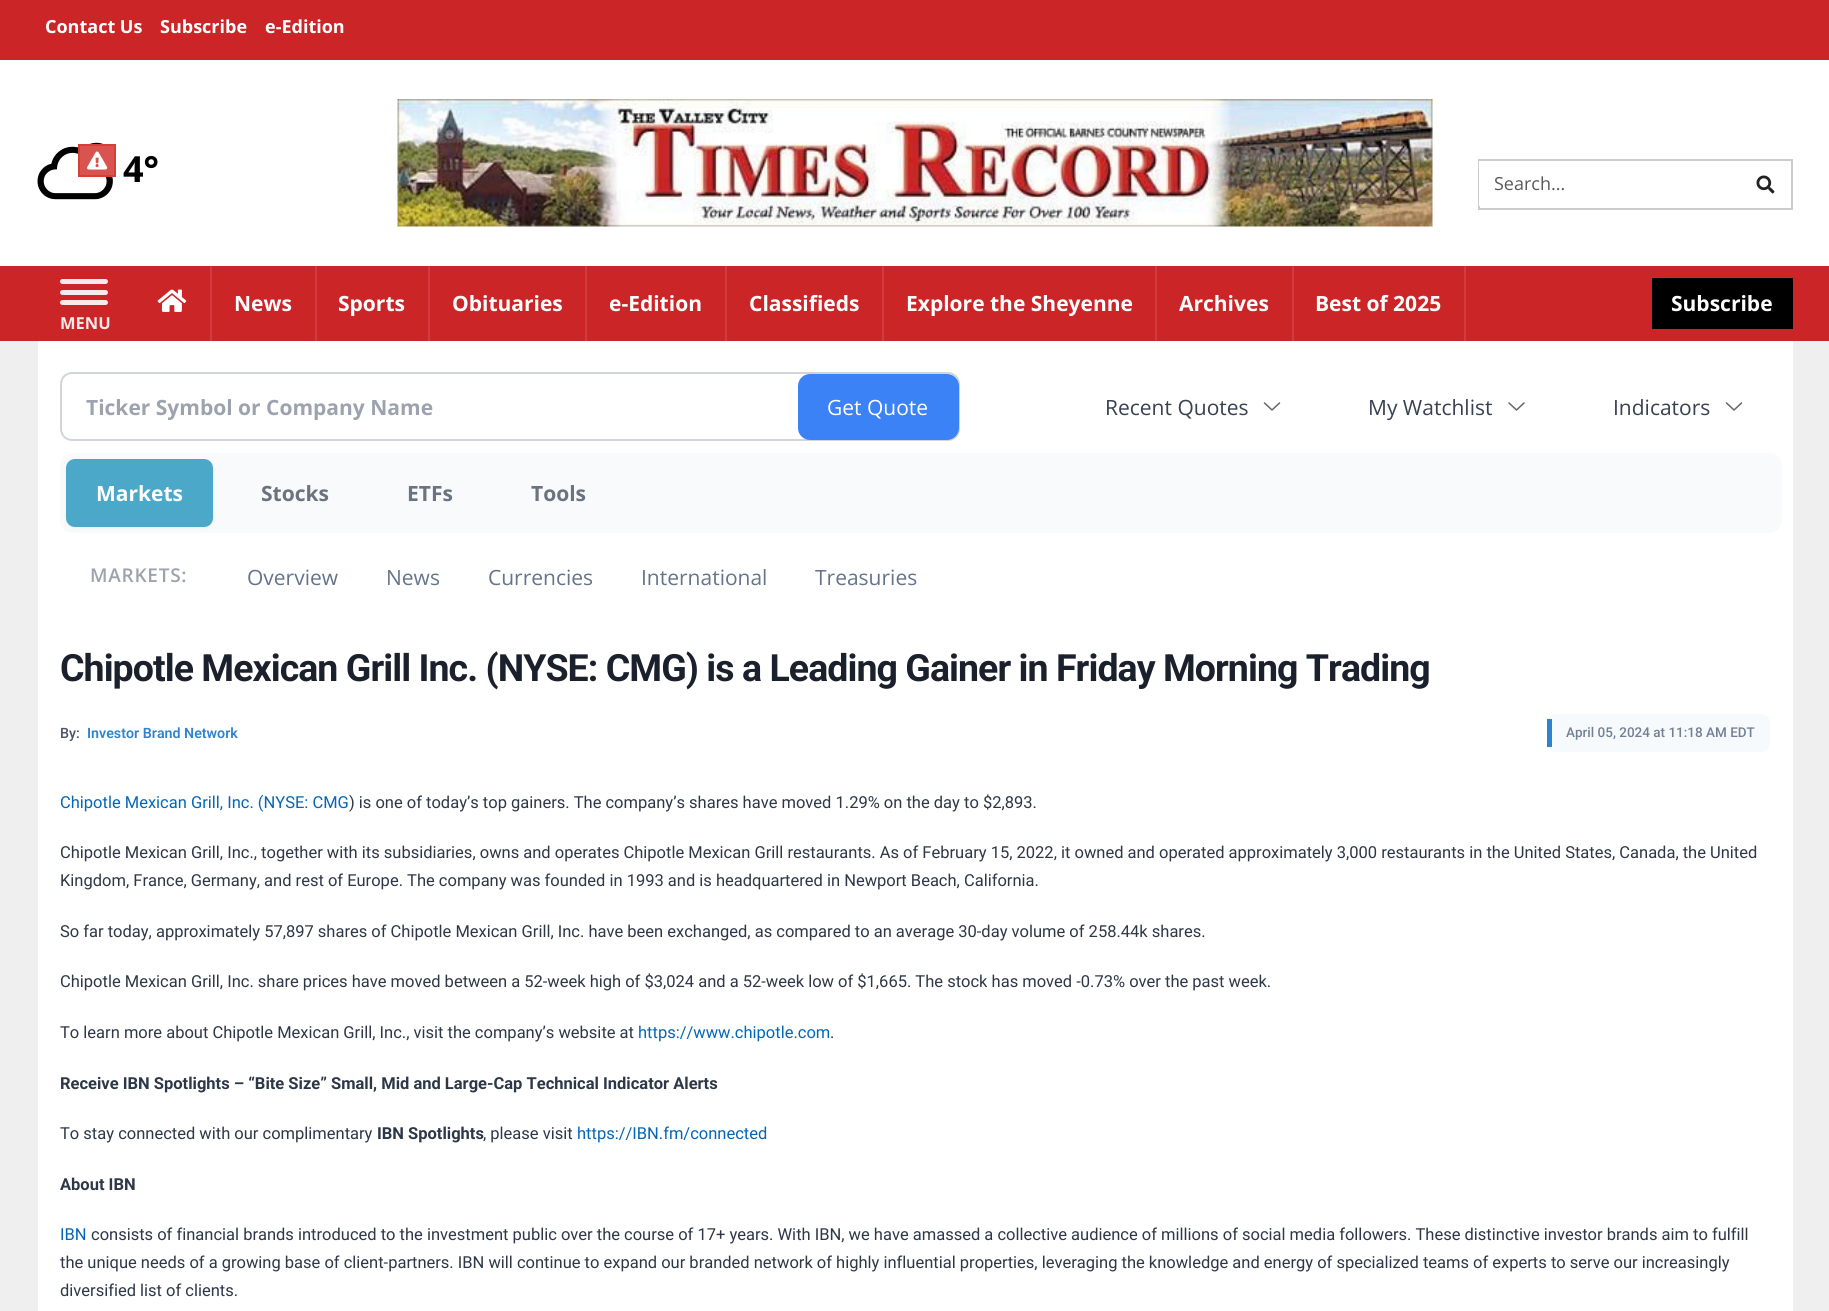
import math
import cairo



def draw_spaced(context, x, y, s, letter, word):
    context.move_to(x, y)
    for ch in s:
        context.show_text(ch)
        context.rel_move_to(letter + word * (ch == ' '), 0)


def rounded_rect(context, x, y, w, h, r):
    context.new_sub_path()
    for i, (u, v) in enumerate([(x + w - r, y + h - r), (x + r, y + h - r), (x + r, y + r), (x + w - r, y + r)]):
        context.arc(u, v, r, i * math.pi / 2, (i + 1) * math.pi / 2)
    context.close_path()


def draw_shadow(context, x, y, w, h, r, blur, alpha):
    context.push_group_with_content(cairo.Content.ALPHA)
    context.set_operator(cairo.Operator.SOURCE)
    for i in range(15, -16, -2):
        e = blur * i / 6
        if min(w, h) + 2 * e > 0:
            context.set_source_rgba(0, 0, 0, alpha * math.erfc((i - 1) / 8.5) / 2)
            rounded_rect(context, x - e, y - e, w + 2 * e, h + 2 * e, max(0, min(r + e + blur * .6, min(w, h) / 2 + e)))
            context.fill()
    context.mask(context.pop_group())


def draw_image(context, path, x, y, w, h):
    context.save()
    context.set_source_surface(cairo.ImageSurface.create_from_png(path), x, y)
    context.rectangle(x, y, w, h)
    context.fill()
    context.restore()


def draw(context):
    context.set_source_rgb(239 / 255, 239 / 255, 239 / 255)
    context.paint()
    context.set_source_rgb(204 / 255, 37 / 255, 40 / 255)
    context.rectangle(0, 0, 1829, 60)
    context.fill()
    context.set_source_rgb(1, 1, 1)
    context.rectangle(0, 60, 1829, 206)
    context.fill()
    draw_image(context, "images/1.png", 37, 142, 76, 58)
    context.set_source_rgb(217 / 255, 83 / 255, 79 / 255)
    context.rectangle(79, 145, 36, 31)
    context.fill_preserve()
    context.set_source_rgb(212 / 255, 63 / 255, 58 / 255)
    context.stroke()
    draw_image(context, "images/2.png", 87, 151, 21, 19)
    draw_image(context, "images/3.png", 397, 99, 1036, 128)
    context.rectangle(1479, 160, 313, 49)
    context.set_source_rgb(204 / 255, 204 / 255, 204 / 255)
    context.stroke()
    context.set_source_rgb(1, 1, 1)
    context.rectangle(1479, 161, 1, 45)
    context.fill()
    draw_image(context, "images/4.png", 1756, 175, 19, 19)
    context.set_source_rgb(204 / 255, 37 / 255, 40 / 255)
    context.rectangle(0, 266, 1829, 75)
    context.fill()
    context.set_source_rgb(209 / 255, 59 / 255, 62 / 255)
    context.rectangle(210, 266, 2, 75)
    context.fill()
    draw_image(context, "images/5.png", 157, 289, 30, 23)
    context.rectangle(315, 266, 2, 75)
    context.fill()
    context.rectangle(428, 266, 2, 75)
    context.fill()
    context.rectangle(585, 266, 2, 75)
    context.fill()
    context.rectangle(725, 266, 2, 75)
    context.fill()
    context.rectangle(882, 266, 2, 75)
    context.fill()
    context.rectangle(1155, 266, 2, 75)
    context.fill()
    context.rectangle(1292, 266, 2, 75)
    context.fill()
    context.rectangle(1464, 266, 2, 75)
    context.fill()
    context.set_source_rgb(0, 0, 0)
    context.rectangle(1652, 278, 141, 51)
    context.fill()
    context.set_source_rgb(250 / 255, 233 / 255, 234 / 255)
    rounded_rect(context, 60, 279, 48, 5, 2.5)
    context.fill()
    rounded_rect(context, 60, 290, 48, 5, 2.5)
    context.fill()
    rounded_rect(context, 60, 300, 48, 5, 2.5)
    context.fill()
    context.set_source_rgb(1, 1, 1)
    context.rectangle(38, 341, 1755, 970)
    context.fill()
    rounded_rect(context, 61, 373, 898, 67, 11)
    context.set_source_rgb(209 / 255, 213 / 255, 219 / 255)
    context.stroke()
    context.set_source_rgb(59 / 255, 130 / 255, 246 / 255)
    rounded_rect(context, 798, 374, 161, 66, 12)
    context.fill()
    context.new_path()
    context.move_to(1279.5, 403)
    context.line_to(1272, 410)
    context.line_to(1264.5, 403)
    context.set_source_rgb(102 / 255, 102 / 255, 102 / 255)
    context.set_line_width(1.5)
    context.set_line_cap(cairo.LineCap.ROUND)
    context.set_line_join(cairo.LineJoin.ROUND)
    context.stroke()
    context.new_path()
    context.move_to(1524, 403)
    context.line_to(1516.5, 410)
    context.line_to(1509, 403)
    context.stroke()
    context.new_path()
    context.move_to(1741.5, 403)
    context.line_to(1734, 410)
    context.line_to(1726.5, 403)
    context.stroke()
    context.set_source_rgb(248 / 255, 250 / 255, 252 / 255)
    rounded_rect(context, 60, 453, 1722, 80, 12)
    context.fill()
    context.set_source_rgb(0, 0, 0)
    draw_shadow(context, 66, 461, 147, 67, 9, 1.5, 0.05)
    context.set_source_rgb(76 / 255, 168 / 255, 200 / 255)
    rounded_rect(context, 66, 459, 147, 68, 9)
    context.fill()
    context.set_source_rgb(247 / 255, 250 / 255, 252 / 255)
    rounded_rect(context, 1547, 714, 223, 38, 9)
    context.fill()
    context.set_source_rgb(49 / 255, 130 / 255, 206 / 255)
    context.rectangle(1547, 719, 5, 28)
    context.fill()
    context.select_font_face("Open Sans", cairo.FontSlant.NORMAL, cairo.FontWeight.BOLD)
    context.set_font_size(18)
    context.set_source_rgb(1, 1, 1)
    context.move_to(45, 33)
    context.show_text("Contact Us")
    context.move_to(160, 33)
    context.show_text("Subscribe")
    context.move_to(265, 33)
    context.show_text("e-Edition")
    context.set_font_size(36)
    context.set_source_rgb(0, 0, 0)
    context.move_to(123, 182)
    context.show_text("4°")
    context.select_font_face("Open Sans")
    context.set_font_size(18)
    context.set_source_rgb(89 / 255, 89 / 255, 89 / 255)
    context.move_to(1494, 190)
    context.show_text("Search...")
    context.select_font_face("Open Sans", cairo.FontSlant.NORMAL, cairo.FontWeight.BOLD)
    context.set_font_size(21)
    context.set_source_rgb(1, 1, 1)
    context.move_to(234, 311)
    context.show_text("News")
    context.move_to(338, 311)
    context.show_text("Sports")
    context.move_to(452, 311)
    context.show_text("Obituaries")
    context.move_to(609, 311)
    context.show_text("e-Edition")
    context.move_to(749, 311)
    context.show_text("Classifieds")
    context.move_to(906, 311)
    context.show_text("Explore the Sheyenne")
    context.move_to(1179, 311)
    context.show_text("Archives")
    context.move_to(1315, 311)
    context.show_text("Best of 2025")
    context.move_to(1671, 311)
    context.show_text("Subscribe")
    context.set_font_size(16.5)
    context.set_source_rgb(250 / 255, 233 / 255, 234 / 255)
    context.move_to(60, 329)
    context.show_text("MENU")
    context.set_font_size(21)
    context.set_source_rgb(156 / 255, 163 / 255, 175 / 255)
    context.move_to(86, 415)
    context.show_text("Ticker Symbol or Company Name")
    context.select_font_face("Open Sans")
    context.set_source_rgb(1, 1, 1)
    context.move_to(827, 415)
    context.show_text("Get Quote")
    context.set_source_rgb(55 / 255, 65 / 255, 81 / 255)
    context.move_to(1105, 415)
    context.show_text("Recent Quotes")
    context.move_to(1368, 415)
    context.show_text("My Watchlist")
    context.move_to(1613, 415)
    context.show_text("Indicators")
    context.select_font_face("Open Sans", cairo.FontSlant.NORMAL, cairo.FontWeight.BOLD)
    context.set_source_rgb(1, 1, 1)
    context.move_to(96, 501)
    context.show_text("Markets")
    context.set_source_rgb(107 / 255, 114 / 255, 128 / 255)
    context.move_to(261, 501)
    context.show_text("Stocks")
    context.move_to(407, 501)
    context.show_text("ETFs")
    context.move_to(531, 501)
    context.show_text("Tools")
    context.select_font_face("Open Sans SemiBold")
    context.set_font_size(19)
    context.set_source_rgb(156 / 255, 163 / 255, 175 / 255)
    draw_spaced(context, 90, 582, "MARKETS:", 0.75, 0)
    context.select_font_face("Open Sans")
    context.set_font_size(21)
    context.set_source_rgb(100 / 255, 116 / 255, 139 / 255)
    context.move_to(247, 585)
    context.show_text("Overview")
    context.move_to(386, 585)
    context.show_text("News")
    context.move_to(488, 585)
    context.show_text("Currencies")
    context.move_to(641, 585)
    context.show_text("International")
    context.move_to(815, 585)
    context.show_text("Treasuries")
    context.select_font_face("Roboto", cairo.FontSlant.NORMAL, cairo.FontWeight.BOLD)
    context.set_font_size(37.5)
    context.set_source_rgb(26 / 255, 32 / 255, 44 / 255)
    draw_spaced(context, 60, 681, "Chipotle Mexican Grill Inc. (NYSE: CMG) is a Leading Gainer in Friday Morning Trading", -0.95, 0)
    context.select_font_face("Roboto Medium")
    context.set_font_size(14.25)
    context.set_source_rgb(74 / 255, 85 / 255, 104 / 255)
    context.move_to(60, 738)
    context.show_text("By:")
    context.select_font_face("Roboto SemiBold")
    context.set_source_rgb(49 / 255, 130 / 255, 206 / 255)
    context.move_to(87, 738)
    context.show_text("Investor Brand Network")
    context.select_font_face("Roboto Medium")
    context.set_font_size(13.5)
    context.set_source_rgb(113 / 255, 128 / 255, 150 / 255)
    context.move_to(1566, 737)
    context.show_text("April 05, 2024 at 11:18 AM EDT")
    context.select_font_face("Roboto")
    context.set_font_size(16.5)
    context.set_source_rgb(4 / 255, 102 / 255, 182 / 255)
    context.move_to(60, 808)
    context.show_text("Chipotle Mexican Grill, Inc. (NYSE: CMG")
    context.set_source_rgb(45 / 255, 55 / 255, 72 / 255)
    context.move_to(349, 808)
    context.show_text(") is one of today’s top gainers. The company’s shares have moved 1.29% on the day to $2,893.")
    context.move_to(60, 858)
    context.show_text("Chipotle Mexican Grill, Inc., together with its subsidiaries, owns and operates Chipotle Mexican Grill restaurants. As of February 15, 2022, it owned and operated approximately 3,000 restaurants in the United States, Canada, the United")
    context.move_to(60, 886)
    context.show_text("Kingdom, France, Germany, and rest of Europe. The company was founded in 1993 and is headquartered in Newport Beach, California.")
    context.move_to(60, 937)
    context.show_text("So far today, approximately 57,897 shares of Chipotle Mexican Grill, Inc. have been exchanged, as compared to an average 30-day volume of 258.44k shares.")
    context.move_to(60, 987)
    context.show_text("Chipotle Mexican Grill, Inc. share prices have moved between a 52-week high of $3,024 and a 52-week low of $1,665. The stock has moved -0.73% over the past week.")
    context.move_to(60, 1038)
    context.show_text("To learn more about Chipotle Mexican Grill, Inc., visit the company’s website at")
    context.set_source_rgb(4 / 255, 102 / 255, 182 / 255)
    context.move_to(638, 1038)
    context.show_text("https://www.chipotle.com")
    context.set_source_rgb(45 / 255, 55 / 255, 72 / 255)
    context.move_to(830, 1038)
    context.show_text(".")
    context.select_font_face("Roboto", cairo.FontSlant.NORMAL, cairo.FontWeight.BOLD)
    context.move_to(60, 1089)
    context.show_text("Receive IBN Spotlights – “Bite Size” Small, Mid and Large-Cap Technical Indicator Alerts")
    context.select_font_face("Roboto")
    context.move_to(60, 1139)
    context.show_text("To stay connected with our complimentary")
    context.select_font_face("Roboto", cairo.FontSlant.NORMAL, cairo.FontWeight.BOLD)
    context.move_to(377, 1139)
    context.show_text("IBN Spotlights")
    context.select_font_face("Roboto")
    context.move_to(483, 1139)
    context.show_text(", please visit")
    context.set_source_rgb(4 / 255, 102 / 255, 182 / 255)
    context.move_to(577, 1139)
    context.show_text("https://IBN.fm/connected")
    context.select_font_face("Roboto", cairo.FontSlant.NORMAL, cairo.FontWeight.BOLD)
    context.set_source_rgb(45 / 255, 55 / 255, 72 / 255)
    context.move_to(60, 1190)
    context.show_text("About IBN")
    context.select_font_face("Roboto")
    context.set_source_rgb(4 / 255, 102 / 255, 182 / 255)
    context.move_to(60, 1240)
    context.show_text("IBN")
    context.set_source_rgb(45 / 255, 55 / 255, 72 / 255)
    context.move_to(91, 1240)
    context.show_text("consists of financial brands introduced to the investment public over the course of 17+ years. With IBN, we have amassed a collective audience of millions of social media followers. These distinctive investor brands aim to fulfill")
    context.move_to(60, 1268)
    context.show_text("the unique needs of a growing base of client-partners. IBN will continue to expand our branded network of highly influential properties, leveraging the knowledge and energy of specialized teams of experts to serve our increasingly")
    context.move_to(60, 1296)
    context.show_text("diversified list of clients.")


surface = cairo.ImageSurface(cairo.Format.RGB24, 1829, 1311)
context = cairo.Context(surface)
options = cairo.FontOptions()
options.set_hint_metrics(cairo.HintMetrics.OFF)
options.set_hint_style(cairo.HintStyle.NONE)
context.set_font_options(options)
context.set_miter_limit(4)
draw(context)
surface.write_to_png("out.png")
